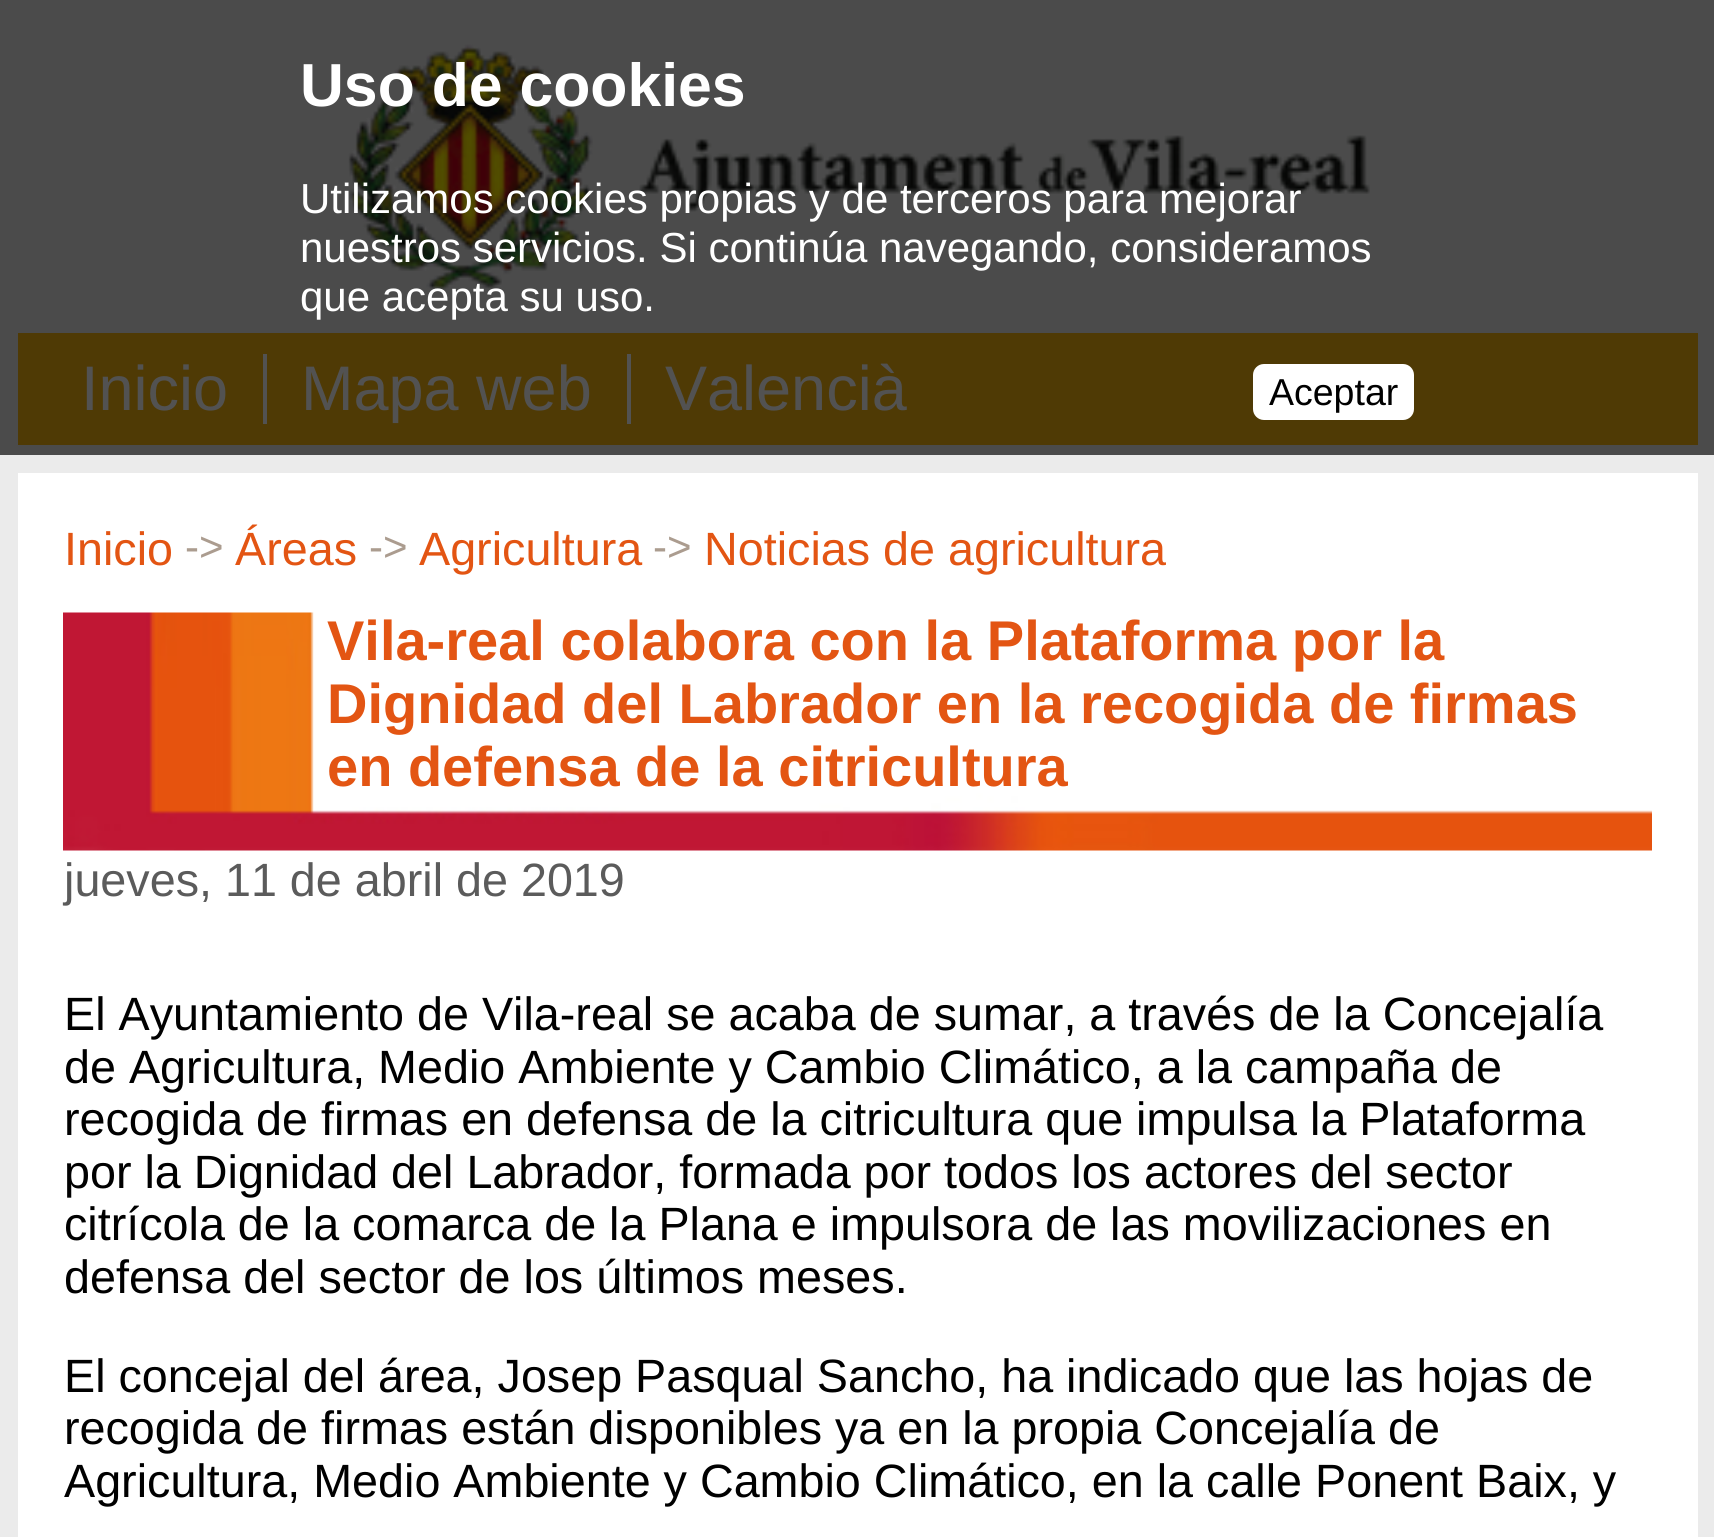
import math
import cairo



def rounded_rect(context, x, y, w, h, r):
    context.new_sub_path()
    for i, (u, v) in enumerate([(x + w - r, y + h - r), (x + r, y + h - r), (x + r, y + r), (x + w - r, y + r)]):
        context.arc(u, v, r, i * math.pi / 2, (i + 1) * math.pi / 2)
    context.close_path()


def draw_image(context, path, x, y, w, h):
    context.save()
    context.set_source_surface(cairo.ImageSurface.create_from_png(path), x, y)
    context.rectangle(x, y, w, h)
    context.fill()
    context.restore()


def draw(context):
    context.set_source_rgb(235 / 255, 235 / 255, 235 / 255)
    context.paint()
    context.set_source_rgb(75 / 255, 75 / 255, 75 / 255)
    context.rectangle(0, 0, 1714, 455)
    context.fill()
    context.set_source_rgb(79 / 255, 58 / 255, 5 / 255)
    context.rectangle(18, 333, 1680, 112)
    context.fill()
    context.set_source_rgb(1, 1, 1)
    rounded_rect(context, 1253, 364, 161, 56, 11)
    context.fill()
    draw_image(context, "images/1.png", 348, 44, 1022, 248)
    context.set_source_rgb(82 / 255, 82 / 255, 82 / 255)
    context.rectangle(263, 354, 4, 70)
    context.fill()
    context.rectangle(627, 354, 4, 70)
    context.fill()
    context.set_source_rgb(1, 1, 1)
    context.rectangle(18, 473, 1680, 1064)
    context.fill()
    draw_image(context, "images/2.png", 63, 612, 1589, 239)
    context.select_font_face("Liberation Sans", cairo.FontSlant.NORMAL, cairo.FontWeight.BOLD)
    context.set_font_size(60.75)
    context.move_to(300, 106)
    context.show_text("Uso de cookies")
    context.select_font_face("Liberation Sans")
    context.set_font_size(42)
    context.move_to(300, 213)
    context.show_text("Utilizamos cookies propias y de terceros para mejorar")
    context.move_to(300, 262)
    context.show_text("nuestros servicios. Si continúa navegando, consideramos")
    context.move_to(300, 311)
    context.show_text("que acepta su uso.")
    context.set_font_size(37.5)
    context.set_source_rgb(0, 0, 0)
    context.move_to(1269, 405)
    context.show_text("Aceptar")
    context.set_font_size(63)
    context.set_source_rgb(82 / 255, 82 / 255, 82 / 255)
    context.move_to(81, 410)
    context.show_text("Inicio")
    context.move_to(301, 410)
    context.show_text("Mapa web")
    context.move_to(665, 410)
    context.show_text("Valencià")
    context.set_font_size(46.7)
    context.set_source_rgb(227 / 255, 85 / 255, 19 / 255)
    context.move_to(64, 565)
    context.show_text("Inicio")
    context.set_font_size(42)
    context.set_source_rgb(171 / 255, 156 / 255, 143 / 255)
    context.move_to(185, 561)
    context.show_text("->")
    context.set_font_size(46.7)
    context.set_source_rgb(227 / 255, 85 / 255, 19 / 255)
    context.move_to(235, 565)
    context.show_text("Áreas")
    context.set_font_size(42)
    context.set_source_rgb(171 / 255, 156 / 255, 143 / 255)
    context.move_to(369, 561)
    context.show_text("->")
    context.set_font_size(46.7)
    context.set_source_rgb(227 / 255, 85 / 255, 19 / 255)
    context.move_to(419, 565)
    context.show_text("Agricultura")
    context.set_font_size(42)
    context.set_source_rgb(171 / 255, 156 / 255, 143 / 255)
    context.move_to(653, 561)
    context.show_text("->")
    context.set_font_size(46.7)
    context.set_source_rgb(227 / 255, 85 / 255, 19 / 255)
    context.move_to(704, 565)
    context.show_text("Noticias de agricultura")
    context.select_font_face("Liberation Sans", cairo.FontSlant.NORMAL, cairo.FontWeight.BOLD)
    context.set_font_size(56)
    context.move_to(327, 660)
    context.show_text("Vila-real colabora con la Plataforma por la")
    context.move_to(327, 723)
    context.show_text("Dignidad del Labrador en la recogida de firmas")
    context.move_to(327, 786)
    context.show_text("en defensa de la citricultura")
    context.select_font_face("Liberation Sans")
    context.set_font_size(46.7)
    context.set_source_rgb(91 / 255, 91 / 255, 91 / 255)
    context.move_to(64, 896)
    context.show_text("jueves, 11 de abril de 2019")
    context.set_source_rgb(0, 0, 0)
    context.move_to(64, 1030)
    context.show_text("El Ayuntamiento de Vila-real se acaba de sumar, a través de la Concejalía")
    context.move_to(64, 1083)
    context.show_text("de Agricultura, Medio Ambiente y Cambio Climático, a la campaña de")
    context.move_to(64, 1135)
    context.show_text("recogida de firmas en defensa de la citricultura que impulsa la Plataforma")
    context.move_to(64, 1188)
    context.show_text("por la Dignidad del Labrador, formada por todos los actores del sector")
    context.move_to(64, 1240)
    context.show_text("citrícola de la comarca de la Plana e impulsora de las movilizaciones en")
    context.move_to(64, 1293)
    context.show_text("defensa del sector de los últimos meses.")
    context.move_to(64, 1392)
    context.show_text("El concejal del área, Josep Pasqual Sancho, ha indicado que las hojas de")
    context.move_to(64, 1444)
    context.show_text("recogida de firmas están disponibles ya en la propia Concejalía de")
    context.move_to(64, 1497)
    context.show_text("Agricultura, Medio Ambiente y Cambio Climático, en la calle Ponent Baix, y")


surface = cairo.ImageSurface(cairo.Format.RGB24, 1714, 1537)
context = cairo.Context(surface)
options = cairo.FontOptions()
options.set_hint_metrics(cairo.HintMetrics.OFF)
options.set_hint_style(cairo.HintStyle.NONE)
context.set_font_options(options)
context.set_miter_limit(4)
draw(context)
surface.write_to_png("out.png")
